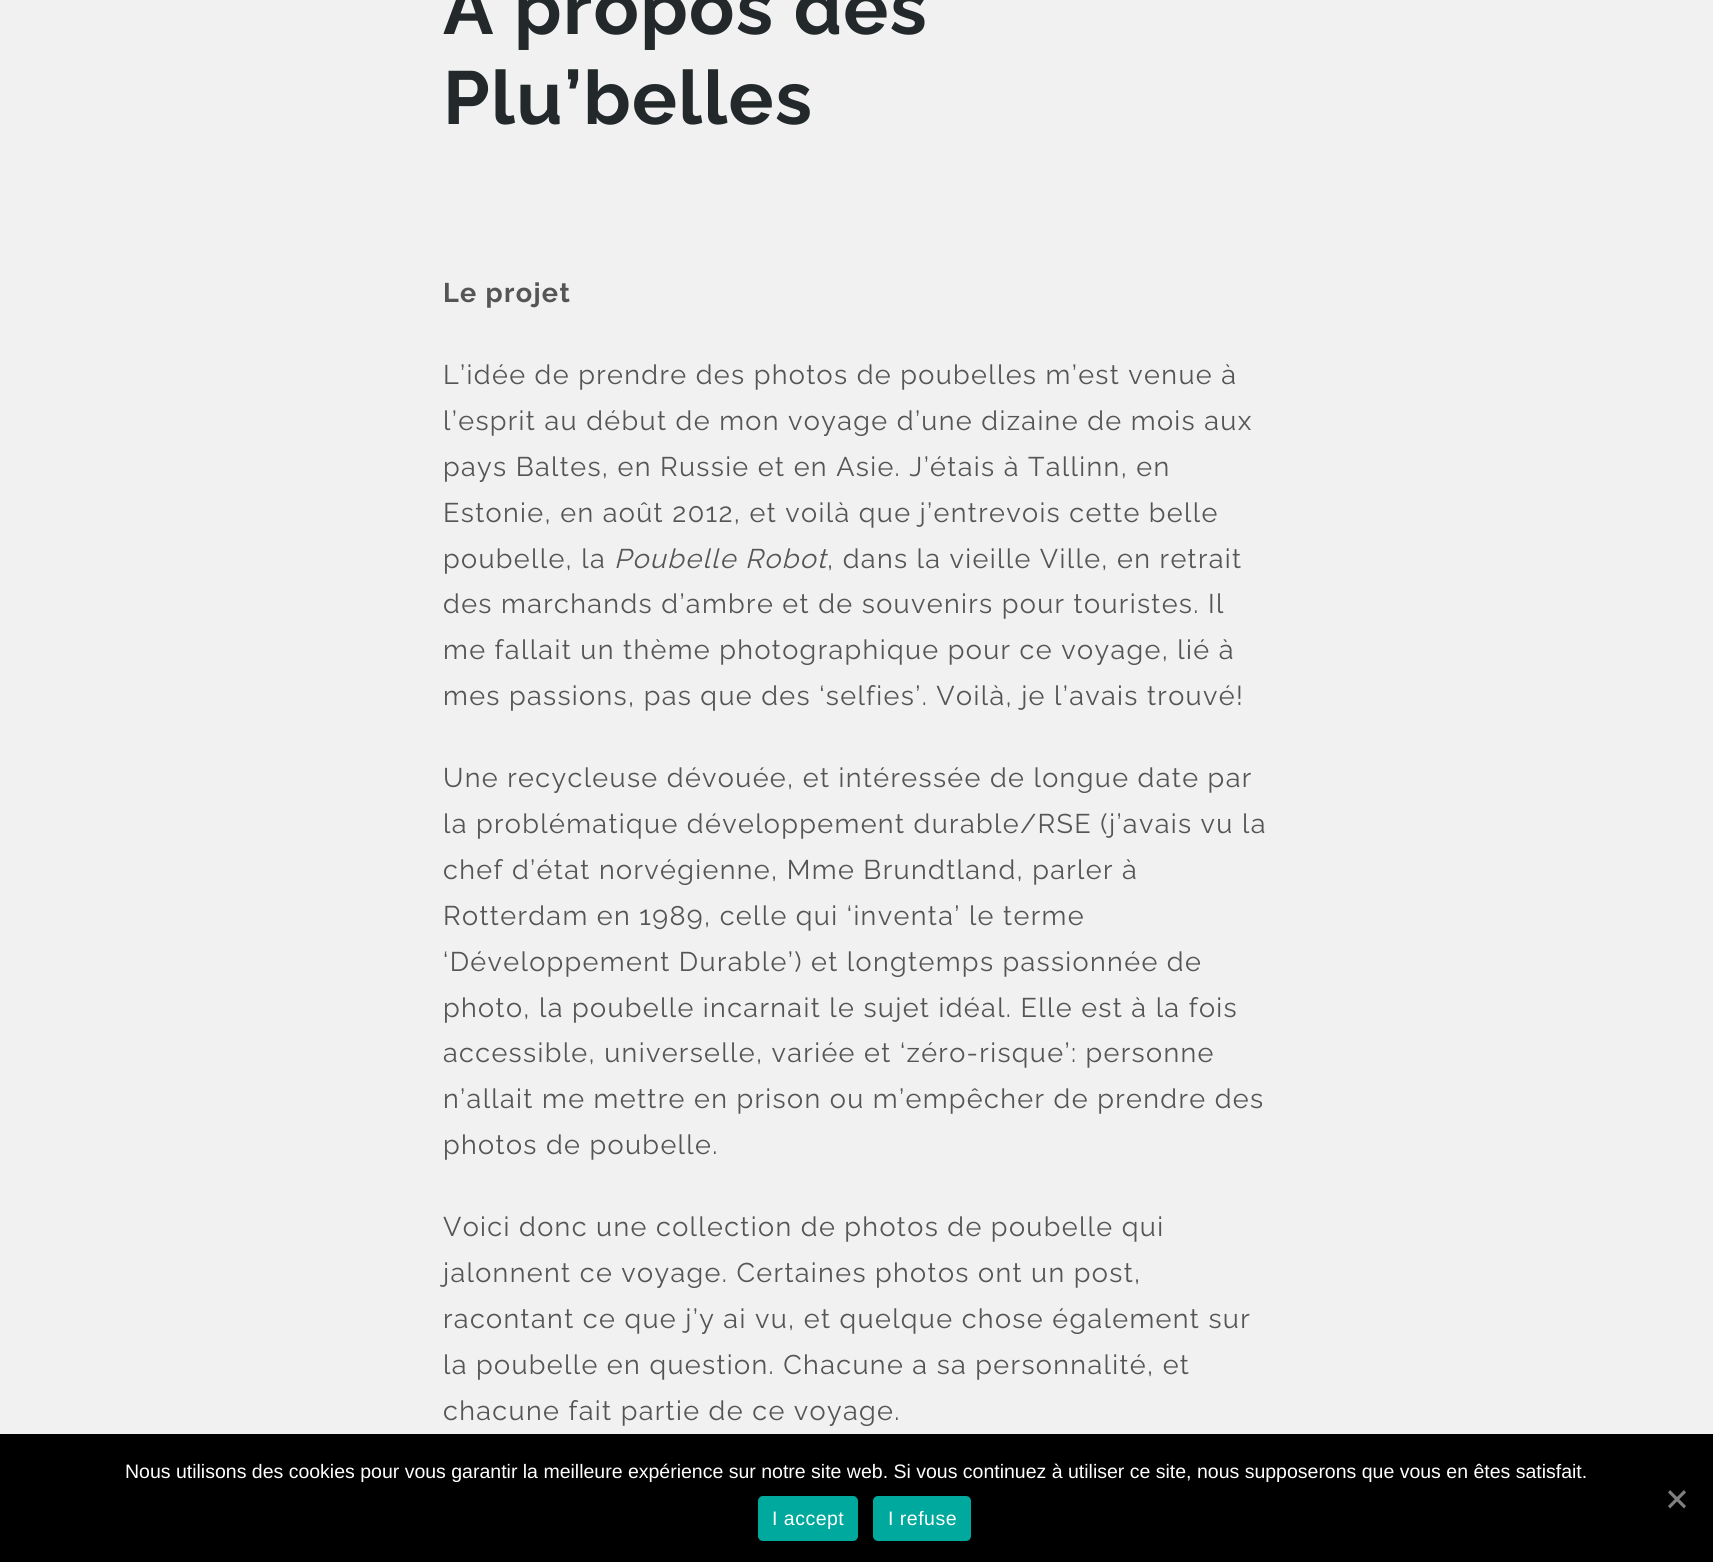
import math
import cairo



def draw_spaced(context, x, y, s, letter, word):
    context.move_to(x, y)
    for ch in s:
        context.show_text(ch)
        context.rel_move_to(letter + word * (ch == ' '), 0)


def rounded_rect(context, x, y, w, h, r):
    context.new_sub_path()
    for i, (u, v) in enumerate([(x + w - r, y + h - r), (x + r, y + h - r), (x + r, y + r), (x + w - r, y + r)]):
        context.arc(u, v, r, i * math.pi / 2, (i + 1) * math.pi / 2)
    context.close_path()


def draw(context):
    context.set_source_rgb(241 / 255, 241 / 255, 241 / 255)
    context.paint()
    context.set_source_rgb(0, 0, 0)
    context.rectangle(0, 1434, 1713, 128)
    context.fill()
    context.set_source_rgb(128 / 255, 128 / 255, 128 / 255)
    context.new_path()
    context.move_to(1684, 1490)
    context.line_to(1686, 1492.5)
    context.line_to(1670, 1508.5)
    context.line_to(1668, 1506)
    context.close_path()
    context.fill()
    context.new_path()
    context.move_to(1668, 1492.5)
    context.line_to(1670, 1490)
    context.line_to(1686, 1506)
    context.line_to(1684, 1508.5)
    context.close_path()
    context.fill()
    context.set_source_rgb(0, 169 / 255, 157 / 255)
    rounded_rect(context, 758, 1496, 100, 45, 5)
    context.fill()
    rounded_rect(context, 873, 1496, 98, 45, 5)
    context.fill()
    context.select_font_face("Raleway", cairo.FontSlant.NORMAL, cairo.FontWeight.BOLD)
    context.set_font_size(75)
    context.set_source_rgb(35 / 255, 41 / 255, 43 / 255)
    draw_spaced(context, 443, 34, "A propos des", 1.35, 0)
    draw_spaced(context, 443, 124, "Plu’belles", 1.35, 0)
    context.set_font_size(27)
    context.set_source_rgb(85 / 255, 85 / 255, 85 / 255)
    draw_spaced(context, 443, 302, "Le projet", 1.35, 0)
    context.select_font_face("Raleway")
    draw_spaced(context, 443, 384, "L’idée de prendre des photos de poubelles m’est venue à", 1.35, 0)
    draw_spaced(context, 443, 430, "l’esprit au début de mon voyage d’une dizaine de mois aux", 1.35, 0)
    draw_spaced(context, 443, 476, "pays Baltes, en Russie et en Asie. J’étais à Tallinn, en", 1.35, 0)
    draw_spaced(context, 443, 522, "Estonie, en août 2012, et voilà que j’entrevois cette belle", 1.35, 0)
    draw_spaced(context, 443, 568, "poubelle, la", 1.35, 0)
    context.select_font_face("Raleway", cairo.FontSlant.ITALIC)
    draw_spaced(context, 614, 568, "Poubelle Robot", 1.35, 0)
    context.select_font_face("Raleway")
    draw_spaced(context, 827, 568, ", dans la vieille Ville, en retrait", 1.35, 0)
    draw_spaced(context, 443, 613, "des marchands d’ambre et de souvenirs pour touristes. Il", 1.35, 0)
    draw_spaced(context, 443, 659, "me fallait un thème photographique pour ce voyage, lié à", 1.35, 0)
    draw_spaced(context, 443, 705, "mes passions, pas que des ‘selfies’. Voilà, je l’avais trouvé!", 1.35, 0)
    draw_spaced(context, 443, 787, "Une recycleuse dévouée, et intéressée de longue date par", 1.35, 0)
    draw_spaced(context, 443, 833, "la problématique développement durable/RSE (j’avais vu la", 1.35, 0)
    draw_spaced(context, 443, 879, "chef d’état norvégienne, Mme Brundtland, parler à", 1.35, 0)
    draw_spaced(context, 443, 925, "Rotterdam en 1989, celle qui ‘inventa’ le terme", 1.35, 0)
    draw_spaced(context, 443, 971, "‘Développement Durable’) et longtemps passionnée de", 1.35, 0)
    draw_spaced(context, 443, 1017, "photo, la poubelle incarnait le sujet idéal. Elle est à la fois", 1.35, 0)
    draw_spaced(context, 443, 1062, "accessible, universelle, variée et ‘zéro-risque’: personne", 1.35, 0)
    draw_spaced(context, 443, 1108, "n’allait me mettre en prison ou m’empêcher de prendre des", 1.35, 0)
    draw_spaced(context, 443, 1154, "photos de poubelle.", 1.35, 0)
    draw_spaced(context, 443, 1236, "Voici donc une collection de photos de poubelle qui", 1.35, 0)
    draw_spaced(context, 443, 1282, "jalonnent ce voyage. Certaines photos ont un post,", 1.35, 0)
    draw_spaced(context, 443, 1328, "racontant ce que j’y ai vu, et quelque chose également sur", 1.35, 0)
    draw_spaced(context, 443, 1374, "la poubelle en question. Chacune a sa personnalité, et", 1.35, 0)
    draw_spaced(context, 443, 1420, "chacune fait partie de ce voyage.", 1.35, 0)
    context.select_font_face("Liberation Sans")
    context.set_font_size(19.5)
    context.set_source_rgb(1, 1, 1)
    context.move_to(125, 1478)
    context.show_text("Nous utilisons des cookies pour vous garantir la meilleure expérience sur notre site web. Si vous continuez à utiliser ce site, nous supposerons que vous en êtes satisfait.")
    draw_spaced(context, 772, 1525, "I accept", 0.5, 0)
    draw_spaced(context, 888, 1525, "I refuse", 0.5, 0)


surface = cairo.ImageSurface(cairo.Format.RGB24, 1713, 1562)
context = cairo.Context(surface)
options = cairo.FontOptions()
options.set_hint_metrics(cairo.HintMetrics.OFF)
options.set_hint_style(cairo.HintStyle.NONE)
context.set_font_options(options)
context.set_miter_limit(4)
draw(context)
surface.write_to_png("out.png")
